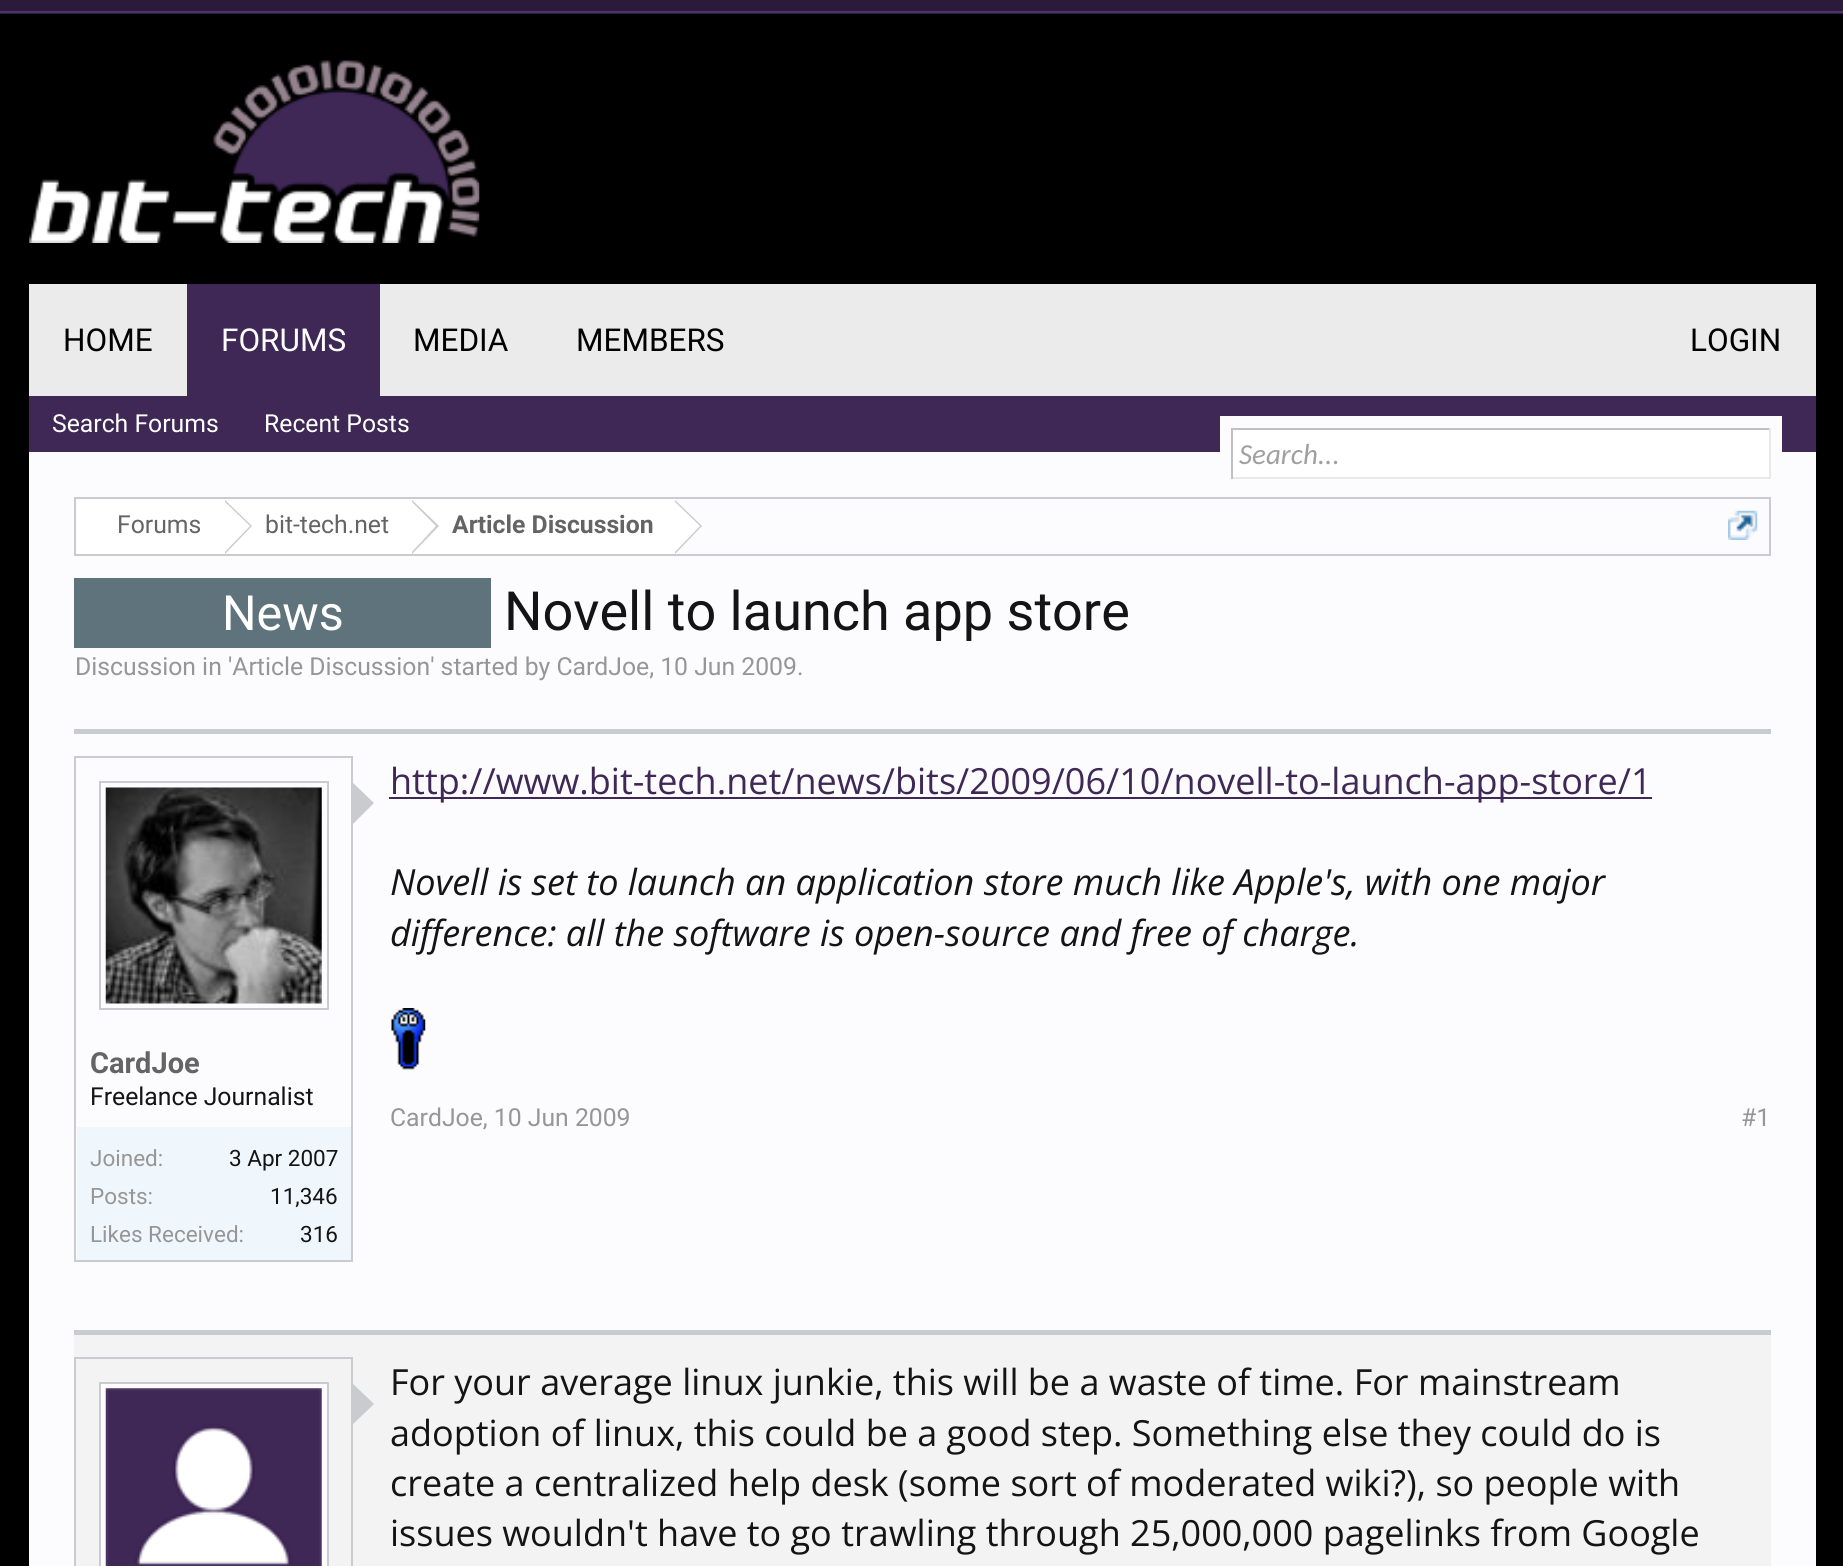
import math
import cairo



def draw_image(context, path, x, y, w, h):
    context.save()
    context.set_source_surface(cairo.ImageSurface.create_from_png(path), x, y)
    context.rectangle(x, y, w, h)
    context.fill()
    context.restore()


def draw(context):
    context.set_source_rgb(0, 0, 0)
    context.paint()
    context.set_source_rgb(44 / 255, 26 / 255, 61 / 255)
    context.rectangle(0, 0, 1843, 14)
    context.fill()
    context.set_source_rgb(79 / 255, 51 / 255, 107 / 255)
    context.rectangle(0, 11, 1843, 2)
    context.fill()
    draw_image(context, "images/1.png", 29, 60, 451, 183)
    context.set_source_rgb(235 / 255, 235 / 255, 235 / 255)
    context.rectangle(29, 284, 1787, 112)
    context.fill()
    context.set_source_rgb(63 / 255, 40 / 255, 86 / 255)
    context.rectangle(187, 284, 193, 112)
    context.fill()
    context.rectangle(29, 396, 1787, 56)
    context.fill()
    context.set_source_rgb(252 / 255, 252 / 255, 1)
    context.rectangle(1220, 416, 562, 36)
    context.fill()
    context.rectangle(29, 452, 1787, 1114)
    context.fill()
    context.set_source_rgb(1, 1, 1)
    context.rectangle(1233, 430, 536, 47)
    context.fill()
    context.set_source_rgb(192 / 255, 192 / 255, 192 / 255)
    context.rectangle(1231, 428, 540, 2)
    context.fill()
    context.set_source_rgb(233 / 255, 233 / 255, 233 / 255)
    context.rectangle(1769, 428, 2, 51)
    context.fill()
    context.rectangle(1231, 477, 540, 2)
    context.fill()
    context.set_source_rgb(192 / 255, 192 / 255, 192 / 255)
    context.rectangle(1231, 428, 2, 51)
    context.fill()
    context.rectangle(75, 498, 1695, 57)
    context.set_source_rgb(202 / 255, 203 / 255, 207 / 255)
    context.stroke()
    context.set_source_rgb(1, 1, 1)
    context.rectangle(77, 500, 598, 54)
    context.fill()
    context.set_source_rgb(202 / 255, 203 / 255, 207 / 255)
    context.new_path()
    context.move_to(225, 554)
    context.line_to(225, 500)
    context.line_to(252, 526)
    context.close_path()
    context.fill()
    context.set_source_rgb(1, 1, 1)
    context.new_path()
    context.move_to(223, 554)
    context.line_to(223, 500)
    context.line_to(250, 526)
    context.close_path()
    context.fill()
    context.set_source_rgb(202 / 255, 203 / 255, 207 / 255)
    context.new_path()
    context.move_to(412, 554)
    context.line_to(412, 500)
    context.line_to(439, 526)
    context.close_path()
    context.fill()
    context.set_source_rgb(1, 1, 1)
    context.new_path()
    context.move_to(410, 554)
    context.line_to(410, 500)
    context.line_to(436, 526)
    context.close_path()
    context.fill()
    context.set_source_rgb(202 / 255, 203 / 255, 207 / 255)
    context.new_path()
    context.move_to(675, 554)
    context.line_to(675, 500)
    context.line_to(702, 526)
    context.close_path()
    context.fill()
    context.set_source_rgb(1, 1, 1)
    context.new_path()
    context.move_to(673, 554)
    context.line_to(673, 500)
    context.line_to(700, 526)
    context.close_path()
    context.fill()
    draw_image(context, "images/2.png", 1728, 510, 30, 30)
    context.set_source_rgb(94 / 255, 115 / 255, 123 / 255)
    context.rectangle(74, 578, 417, 70)
    context.fill()
    context.set_source_rgb(202 / 255, 203 / 255, 207 / 255)
    context.rectangle(74, 729, 1697, 5)
    context.fill()
    context.rectangle(75, 757, 277, 504)
    context.stroke()
    context.rectangle(100, 782, 228, 227)
    context.stroke()
    draw_image(context, "images/3.png", 105, 787, 217, 217)
    context.new_path()
    context.move_to(351, 826)
    context.line_to(351, 781)
    context.line_to(374, 803)
    context.close_path()
    context.fill()
    context.set_source_rgb(240 / 255, 247 / 255, 252 / 255)
    context.rectangle(77, 1127, 274, 133)
    context.fill()
    context.set_source_rgb(63 / 255, 40 / 255, 86 / 255)
    context.rectangle(389, 797, 1263, 2)
    context.fill()
    draw_image(context, "images/4.png", 391, 1008, 35, 62)
    context.set_source_rgb(243 / 255, 243 / 255, 243 / 255)
    context.rectangle(74, 1335, 1697, 231)
    context.fill()
    context.set_source_rgb(202 / 255, 203 / 255, 207 / 255)
    context.rectangle(74, 1330, 1697, 5)
    context.fill()
    context.rectangle(75, 1358, 277, 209)
    context.stroke()
    context.set_source_rgb(252 / 255, 252 / 255, 1)
    context.rectangle(100, 1383, 228, 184)
    context.fill_preserve()
    context.set_source_rgb(202 / 255, 203 / 255, 207 / 255)
    context.stroke()
    draw_image(context, "images/5.png", 105, 1388, 217, 178)
    context.new_path()
    context.move_to(351, 1426)
    context.line_to(351, 1382)
    context.line_to(374, 1404)
    context.close_path()
    context.fill()
    context.select_font_face("Roboto")
    context.set_font_size(31.5)
    context.set_source_rgb(1, 1, 1)
    context.move_to(221, 351)
    context.show_text("FORUMS")
    context.set_font_size(24.75)
    context.move_to(52, 432)
    context.show_text("Search Forums")
    context.move_to(264, 432)
    context.show_text("Recent Posts")
    context.set_font_size(31.5)
    context.set_source_rgb(0, 0, 0)
    context.move_to(63, 351)
    context.show_text("HOME")
    context.move_to(413, 351)
    context.show_text("MEDIA")
    context.move_to(576, 351)
    context.show_text("MEMBERS")
    context.move_to(1690, 351)
    context.show_text("LOGIN")
    context.select_font_face("Carlito", cairo.FontSlant.ITALIC)
    context.set_font_size(29)
    context.set_source_rgb(160 / 255, 160 / 255, 160 / 255)
    context.move_to(1239, 464)
    context.show_text("Search...")
    context.select_font_face("Roboto")
    context.set_font_size(24.75)
    context.set_source_rgb(100 / 255, 100 / 255, 100 / 255)
    context.move_to(117, 533)
    context.show_text("Forums")
    context.move_to(265, 533)
    context.show_text("bit-tech.net")
    context.select_font_face("Roboto", cairo.FontSlant.NORMAL, cairo.FontWeight.BOLD)
    context.move_to(452, 533)
    context.show_text("Article Discussion")
    context.select_font_face("Roboto")
    context.set_font_size(48.5)
    context.set_source_rgb(1, 1, 1)
    context.move_to(222, 630)
    context.show_text("News")
    context.set_font_size(54)
    context.set_source_rgb(20 / 255, 20 / 255, 20 / 255)
    context.move_to(504, 630)
    context.show_text("Novell to launch app store")
    context.set_font_size(24.75)
    context.set_source_rgb(150 / 255, 150 / 255, 150 / 255)
    context.move_to(75, 675)
    context.show_text("Discussion in 'Article Discussion' started by CardJoe, 10 Jun 2009.")
    context.select_font_face("Roboto", cairo.FontSlant.NORMAL, cairo.FontWeight.BOLD)
    context.set_font_size(29)
    context.set_source_rgb(100 / 255, 100 / 255, 100 / 255)
    context.move_to(90, 1073)
    context.show_text("CardJoe")
    context.select_font_face("Roboto")
    context.set_font_size(24.75)
    context.set_source_rgb(20 / 255, 20 / 255, 20 / 255)
    context.move_to(90, 1105)
    context.show_text("Freelance Journalist")
    context.set_font_size(22.5)
    context.set_source_rgb(150 / 255, 150 / 255, 150 / 255)
    context.move_to(90, 1166)
    context.show_text("Joined:")
    context.set_source_rgb(20 / 255, 20 / 255, 20 / 255)
    context.move_to(229, 1166)
    context.show_text("3 Apr 2007")
    context.set_source_rgb(150 / 255, 150 / 255, 150 / 255)
    context.move_to(90, 1204)
    context.show_text("Posts:")
    context.set_source_rgb(20 / 255, 20 / 255, 20 / 255)
    context.move_to(270, 1204)
    context.show_text("11,346")
    context.set_source_rgb(150 / 255, 150 / 255, 150 / 255)
    context.move_to(90, 1242)
    context.show_text("Likes Received:")
    context.set_source_rgb(20 / 255, 20 / 255, 20 / 255)
    context.move_to(300, 1242)
    context.show_text("316")
    context.select_font_face("Open Sans")
    context.set_font_size(36)
    context.set_source_rgb(63 / 255, 40 / 255, 86 / 255)
    context.move_to(390, 794)
    context.show_text("http://www.bit-tech.net/news/bits/2009/06/10/novell-to-launch-app-store/1")
    context.select_font_face("Open Sans", cairo.FontSlant.ITALIC)
    context.set_source_rgb(20 / 255, 20 / 255, 20 / 255)
    context.move_to(390, 895)
    context.show_text("Novell is set to launch an application store much like Apple's, with one major")
    context.move_to(390, 946)
    context.show_text("difference: all the software is open-source and free of charge.")
    context.select_font_face("Roboto")
    context.set_font_size(24.75)
    context.set_source_rgb(150 / 255, 150 / 255, 150 / 255)
    context.move_to(390, 1126)
    context.show_text("CardJoe, 10 Jun 2009")
    context.move_to(1741, 1126)
    context.show_text("#1")
    context.select_font_face("Open Sans")
    context.set_font_size(36)
    context.set_source_rgb(20 / 255, 20 / 255, 20 / 255)
    context.move_to(390, 1395)
    context.show_text("For your average linux junkie, this will be a waste of time. For mainstream")
    context.move_to(390, 1446)
    context.show_text("adoption of linux, this could be a good step. Something else they could do is")
    context.move_to(390, 1496)
    context.show_text("create a centralized help desk (some sort of moderated wiki?), so people with")
    context.move_to(390, 1546)
    context.show_text("issues wouldn't have to go trawling through 25,000,000 pagelinks from Google")


surface = cairo.ImageSurface(cairo.Format.RGB24, 1843, 1566)
context = cairo.Context(surface)
options = cairo.FontOptions()
options.set_hint_metrics(cairo.HintMetrics.OFF)
options.set_hint_style(cairo.HintStyle.NONE)
context.set_font_options(options)
context.set_miter_limit(4)
draw(context)
surface.write_to_png("out.png")
